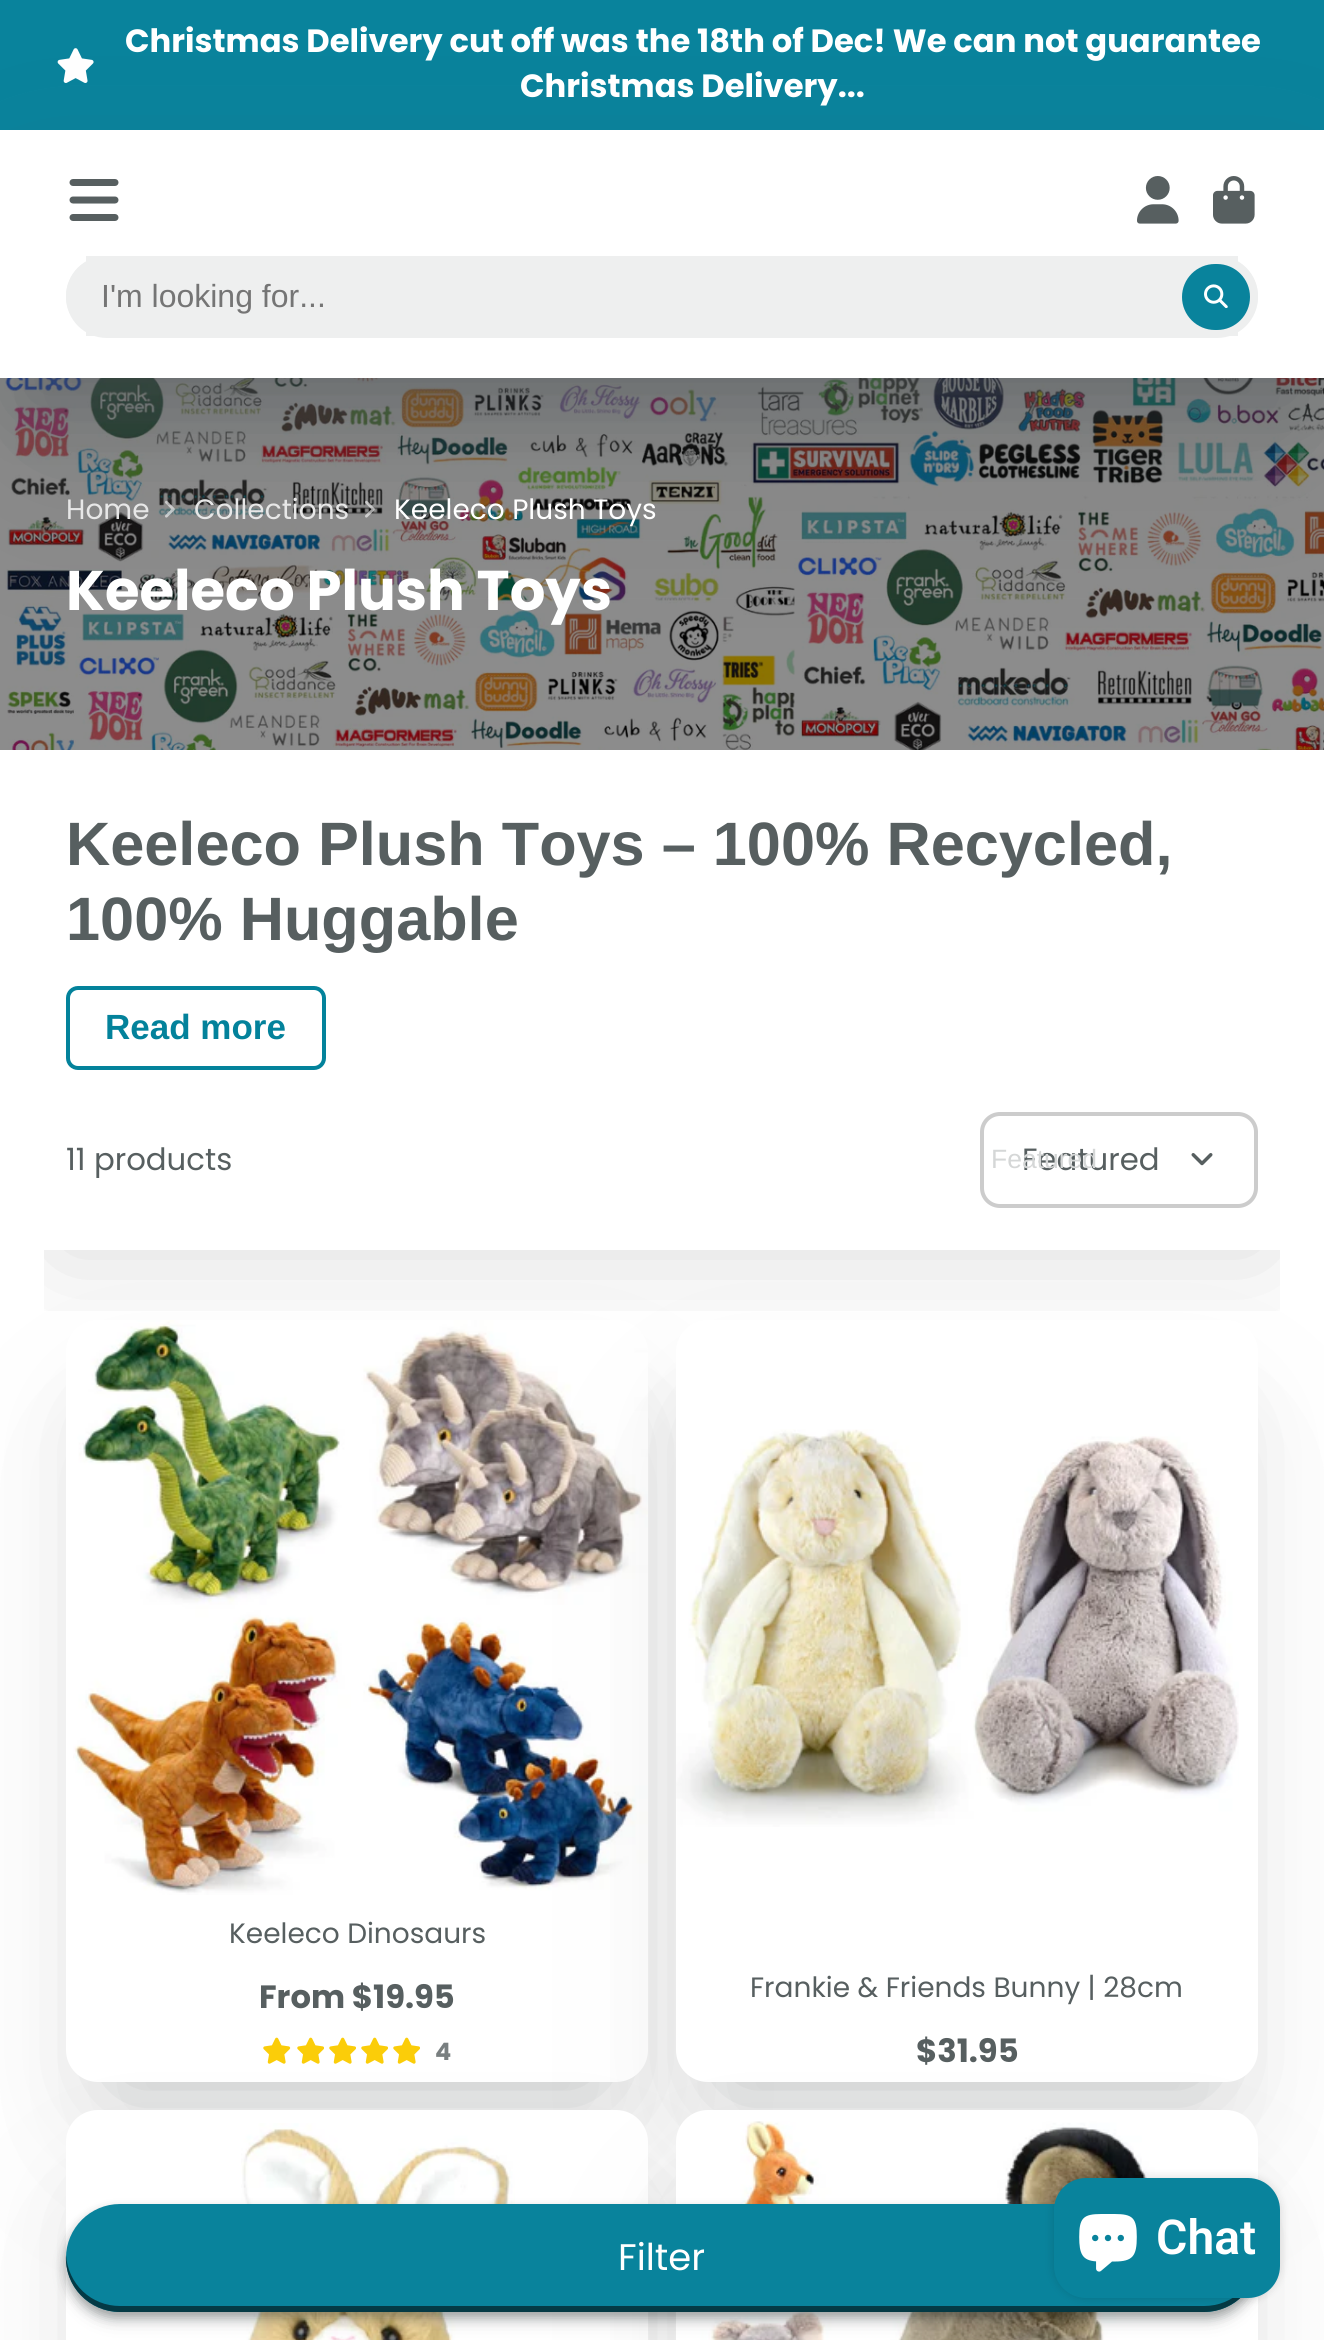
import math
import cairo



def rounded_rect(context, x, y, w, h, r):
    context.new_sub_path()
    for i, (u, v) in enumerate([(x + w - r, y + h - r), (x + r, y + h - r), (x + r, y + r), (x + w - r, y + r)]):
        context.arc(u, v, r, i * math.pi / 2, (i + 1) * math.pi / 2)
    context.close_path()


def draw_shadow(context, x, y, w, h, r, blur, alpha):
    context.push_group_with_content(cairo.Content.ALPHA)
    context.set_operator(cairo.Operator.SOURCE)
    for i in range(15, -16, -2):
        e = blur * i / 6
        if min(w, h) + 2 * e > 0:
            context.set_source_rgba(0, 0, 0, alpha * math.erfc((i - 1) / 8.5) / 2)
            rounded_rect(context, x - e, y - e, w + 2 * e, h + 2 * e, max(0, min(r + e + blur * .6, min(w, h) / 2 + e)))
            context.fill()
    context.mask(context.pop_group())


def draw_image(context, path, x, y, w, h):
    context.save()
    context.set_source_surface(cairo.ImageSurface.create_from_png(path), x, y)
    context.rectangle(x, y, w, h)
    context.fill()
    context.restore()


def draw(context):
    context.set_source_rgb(1, 1, 1)
    context.paint()
    context.set_source_rgb(9 / 255, 131 / 255, 156 / 255)
    context.rectangle(0, 0, 1324, 130)
    context.fill()
    draw_image(context, "images/1.png", 57, 48, 37, 35)
    draw_image(context, "images/6.png", 0, 378, 1324, 372)
    draw_image(context, "images/7.png", 165, 500, 10, 18)
    draw_image(context, "images/8.png", 365, 500, 10, 18)
    context.save()
    context.rectangle(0, 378, 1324, 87)
    context.clip()
    context.set_source_rgb(75 / 255, 82 / 255, 83 / 255)
    draw_shadow(context, 28, 210, 1268, 192, 0, 38.5, 0.4)
    context.restore()
    context.save()
    context.set_fill_rule(cairo.FillRule.EVEN_ODD)
    context.new_path()
    context.move_to(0, 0)
    context.line_to(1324, 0)
    context.line_to(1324, 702)
    context.line_to(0, 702)
    context.close_path()
    context.move_to(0, 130)
    context.line_to(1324, 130)
    context.line_to(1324, 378)
    context.line_to(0, 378)
    context.close_path()
    context.clip()
    context.set_source_rgb(75 / 255, 82 / 255, 83 / 255)
    draw_shadow(context, 28, 246, 1268, 192, 0, 87.5, 0.3)
    context.restore()
    draw_image(context, "images/2.png", 69, 179, 50, 42)
    draw_image(context, "images/3.png", 1137, 176, 42, 48)
    draw_image(context, "images/4.png", 1213, 176, 42, 48)
    context.set_source_rgb(238 / 255, 239 / 255, 239 / 255)
    rounded_rect(context, 66, 256, 1192, 80, 40)
    context.fill()
    context.rectangle(86, 256, 1152, 80)
    context.fill()
    rounded_rect(context, 66, 256, 1192, 82, 41)
    context.fill()
    context.set_source_rgb(9 / 255, 131 / 255, 156 / 255)
    rounded_rect(context, 1182, 264, 68, 66, 33)
    context.fill()
    draw_image(context, "images/5.png", 1204, 284, 24, 24)
    context.save()
    context.rectangle(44, 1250, 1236, 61)
    context.clip()
    context.set_source_rgb(0, 0, 0)
    draw_shadow(context, 60, 1190, 1204, 60, 0, 60, 0.15)
    context.restore()
    rounded_rect(context, 68, 988, 256, 80, 10)
    context.set_source_rgb(3 / 255, 130 / 255, 155 / 255)
    context.set_line_width(4)
    context.stroke()
    rounded_rect(context, 982, 1114, 274, 92, 18)
    context.set_source_rgb(204 / 255, 204 / 255, 204 / 255)
    context.stroke()
    draw_image(context, "images/9.png", 1191, 1153, 22, 13)
    context.set_source_rgb(75 / 255, 82 / 255, 83 / 255)
    draw_shadow(context, 118, 1426, 478, 656, 0, 52.5, 0.3)
    draw_shadow(context, 102, 1442, 512, 692, 0, 87.5, 0.1)
    context.set_source_rgb(1, 1, 1)
    rounded_rect(context, 66, 1320, 582, 762, 32)
    context.fill()
    draw_image(context, "images/10.png", 73, 1320, 575, 575)
    draw_image(context, "images/11.png", 263, 2037, 28, 27)
    draw_image(context, "images/12.png", 297, 2037, 27, 27)
    draw_image(context, "images/12.png", 329, 2037, 27, 27)
    draw_image(context, "images/12.png", 361, 2037, 27, 27)
    draw_image(context, "images/12.png", 393, 2037, 27, 27)
    context.set_source_rgb(75 / 255, 82 / 255, 83 / 255)
    draw_shadow(context, 728, 1426, 478, 656, 0, 52.5, 0.3)
    draw_shadow(context, 712, 1442, 512, 692, 0, 87.5, 0.1)
    context.set_source_rgb(1, 1, 1)
    rounded_rect(context, 676, 1320, 582, 762, 32)
    context.fill()
    context.set_source_rgb(75 / 255, 82 / 255, 83 / 255)
    draw_shadow(context, 118, 2216, 478, 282, 0, 52.5, 0.3)
    draw_shadow(context, 102, 2232, 512, 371, 0, 87.5, 0.1)
    context.set_source_rgb(1, 1, 1)
    rounded_rect(context, 66, 2110, 582, 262, 32)
    context.fill()
    draw_image(context, "images/13.png", 241, 2123, 274, 217)
    context.set_source_rgb(75 / 255, 82 / 255, 83 / 255)
    draw_shadow(context, 728, 2216, 478, 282, 0, 52.5, 0.3)
    draw_shadow(context, 712, 2232, 512, 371, 0, 87.5, 0.1)
    context.set_source_rgb(1, 1, 1)
    rounded_rect(context, 676, 2110, 582, 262, 32)
    context.fill()
    draw_image(context, "images/14.png", 700, 2121, 486, 219)
    draw_image(context, "images/15.png", 676, 1429, 563, 398)
    context.set_source_rgb(1 / 255, 10 / 255, 11 / 255)
    draw_shadow(context, 72, 2220, 1180, 98, 49, 11, 0.15)
    draw_shadow(context, 66, 2210, 1192, 108, 54, 5.5, 0.3)
    context.set_source_rgb(9 / 255, 131 / 255, 156 / 255)
    rounded_rect(context, 66, 2204, 1192, 108, 54)
    context.fill()
    context.set_source_rgb(4 / 255, 58 / 255, 69 / 255)
    context.new_path()
    context.move_to(66, 2255)
    context.curve_to(64, 2286, 89, 2312, 120, 2312)
    context.line_to(1204, 2312)
    context.curve_to(1235, 2312, 1260, 2286, 1258, 2255)
    context.curve_to(1256, 2284, 1233, 2306, 1204, 2306)
    context.line_to(120, 2306)
    context.curve_to(91, 2306, 68, 2284, 66, 2255)
    context.close_path()
    context.fill()
    context.set_source_rgb(0, 0, 0)
    draw_shadow(context, 1054, 2178, 226, 120, 32, 5, 0.15)
    context.set_source_rgb(9 / 255, 131 / 255, 156 / 255)
    rounded_rect(context, 1054, 2178, 226, 120, 32)
    context.fill()
    draw_image(context, "images/16.png", 1079, 2214, 58, 58)
    context.select_font_face("Poppins", cairo.FontSlant.NORMAL, cairo.FontWeight.BOLD)
    context.set_font_size(32.2)
    context.set_source_rgb(1, 1, 1)
    context.move_to(125, 52)
    context.show_text("Christmas Delivery cut off was the 18th of Dec! We can not guarantee")
    context.move_to(520, 97)
    context.show_text("Christmas Delivery...")
    context.select_font_face("Liberation Sans")
    context.set_font_size(32)
    context.set_source_rgb(117 / 255, 117 / 255, 117 / 255)
    context.move_to(101, 307)
    context.show_text("I'm looking for...")
    context.select_font_face("Poppins")
    context.set_font_size(28)
    context.set_source_rgb(231 / 255, 231 / 255, 231 / 255)
    context.move_to(66, 519)
    context.show_text("Home")
    context.move_to(194, 519)
    context.show_text("Collections")
    context.set_source_rgb(1, 1, 1)
    context.move_to(394, 519)
    context.show_text("Keeleco Plush Toys")
    context.select_font_face("Poppins", cairo.FontSlant.NORMAL, cairo.FontWeight.BOLD)
    context.set_font_size(56)
    context.move_to(66, 610)
    context.show_text("Keeleco Plush Toys")
    context.select_font_face("Liberation Sans", cairo.FontSlant.NORMAL, cairo.FontWeight.BOLD)
    context.set_font_size(61.25)
    context.set_source_rgb(87 / 255, 95 / 255, 96 / 255)
    context.move_to(66, 865)
    context.show_text("Keeleco Plush Toys – 100% Recycled,")
    context.move_to(66, 940)
    context.show_text("100% Huggable")
    context.set_font_size(35)
    context.set_source_rgb(3 / 255, 130 / 255, 155 / 255)
    context.move_to(105, 1039)
    context.show_text("Read more")
    context.select_font_face("Poppins")
    context.set_font_size(30.75)
    context.set_source_rgb(87 / 255, 95 / 255, 96 / 255)
    context.move_to(66, 1170)
    context.show_text("11 products")
    context.move_to(1022, 1170)
    context.show_text("Featured")
    context.select_font_face("Liberation Sans")
    context.set_font_size(26.5)
    context.set_source_rgb(213 / 255, 215 / 255, 215 / 255)
    context.move_to(991, 1168)
    context.show_text("Featured")
    context.select_font_face("Poppins")
    context.set_font_size(28)
    context.set_source_rgb(87 / 255, 95 / 255, 96 / 255)
    context.move_to(229, 1943)
    context.show_text("Keeleco Dinosaurs")
    context.select_font_face("Poppins", cairo.FontSlant.NORMAL, cairo.FontWeight.BOLD)
    context.set_font_size(32.2)
    context.move_to(259, 2008)
    context.show_text("From $19.95")
    context.set_font_size(24)
    context.set_source_rgb(121 / 255, 127 / 255, 128 / 255)
    context.move_to(435, 2060)
    context.show_text("4")
    context.select_font_face("Poppins")
    context.set_font_size(28)
    context.set_source_rgb(87 / 255, 95 / 255, 96 / 255)
    context.move_to(750, 1997)
    context.show_text("Frankie & Friends Bunny | 28cm")
    context.select_font_face("Poppins", cairo.FontSlant.NORMAL, cairo.FontWeight.BOLD)
    context.set_font_size(32.2)
    context.move_to(916, 2062)
    context.show_text("$31.95")
    context.select_font_face("Poppins")
    context.set_font_size(37)
    context.set_source_rgb(1, 1, 1)
    context.move_to(618, 2270)
    context.show_text("Filter")
    context.select_font_face("Roboto SemiBold")
    context.set_font_size(48)
    context.move_to(1156, 2254)
    context.show_text("Chat")


surface = cairo.ImageSurface(cairo.Format.RGB24, 1324, 2340)
context = cairo.Context(surface)
options = cairo.FontOptions()
options.set_hint_metrics(cairo.HintMetrics.OFF)
options.set_hint_style(cairo.HintStyle.NONE)
context.set_font_options(options)
context.set_miter_limit(4)
draw(context)
surface.write_to_png("out.png")
